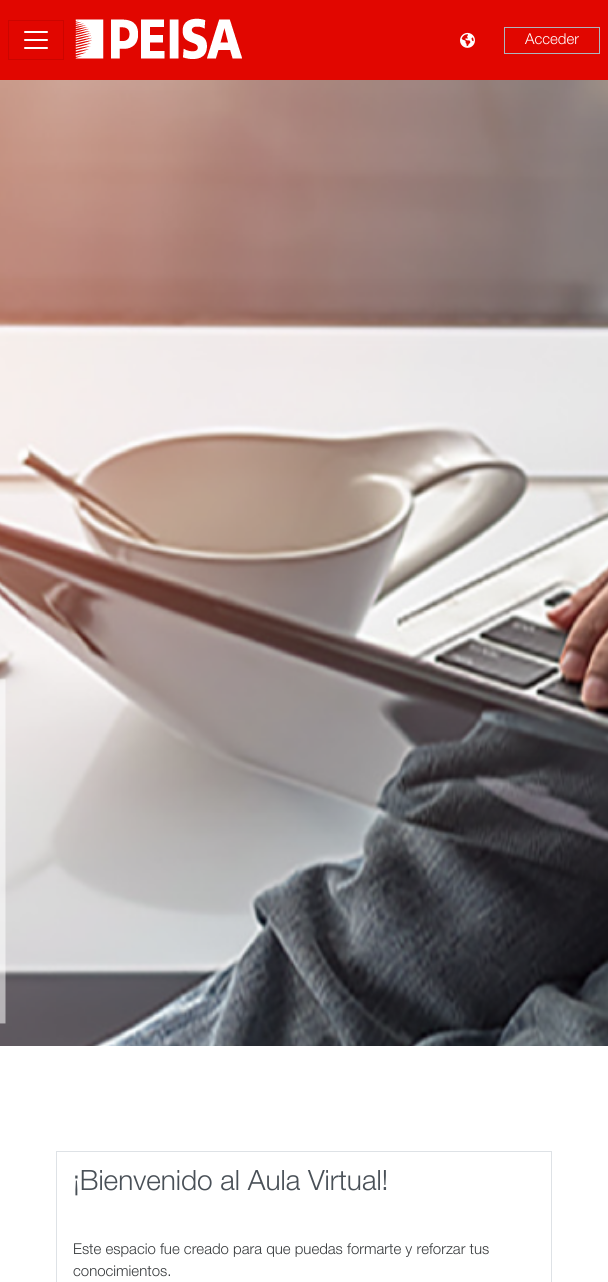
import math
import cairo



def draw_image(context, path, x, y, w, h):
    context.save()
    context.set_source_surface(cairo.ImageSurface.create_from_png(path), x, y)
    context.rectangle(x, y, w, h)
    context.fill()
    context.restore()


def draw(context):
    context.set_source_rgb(1, 1, 1)
    context.paint()
    context.set_source_rgb(225 / 255, 6 / 255, 0)
    context.rectangle(0, 0, 608, 80)
    context.fill()
    context.rectangle(8.5, 20.5, 55, 39)
    context.set_source_rgb(203 / 255, 5 / 255, 0)
    context.set_line_width(1)
    context.stroke()
    draw_image(context, "images/1.png", 24, 31, 24, 18)
    draw_image(context, "images/2.png", 75, 18, 167, 41)
    draw_image(context, "images/3.png", 460, 32, 15, 16)
    context.rectangle(504.5, 27.5, 95, 26)
    context.set_source_rgb(173 / 255, 181 / 255, 189 / 255)
    context.stroke()
    draw_image(context, "images/4.png", 0, 80, 608, 966)
    context.rectangle(56.5, 1151.5, 495, 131)
    context.set_source_rgb(222 / 255, 226 / 255, 230 / 255)
    context.stroke()
    context.select_font_face("Helvetica Neue Light")
    context.set_font_size(15)
    context.set_source_rgb(1, 1, 1)
    context.move_to(525, 44)
    context.show_text("Acceder")
    context.set_font_size(28)
    context.set_source_rgb(73 / 255, 80 / 255, 87 / 255)
    context.move_to(73, 1190)
    context.show_text("¡Bienvenido al Aula Virtual!")
    context.set_font_size(15)
    context.set_source_rgb(55 / 255, 58 / 255, 60 / 255)
    context.move_to(73, 1254)
    context.show_text("Este espacio fue creado para que puedas formarte y reforzar tus")
    context.move_to(73, 1276)
    context.show_text("conocimientos.")


surface = cairo.ImageSurface(cairo.Format.RGB24, 608, 1282)
context = cairo.Context(surface)
options = cairo.FontOptions()
options.set_hint_metrics(cairo.HintMetrics.OFF)
options.set_hint_style(cairo.HintStyle.NONE)
context.set_font_options(options)
context.set_miter_limit(4)
draw(context)
surface.write_to_png("out.png")
